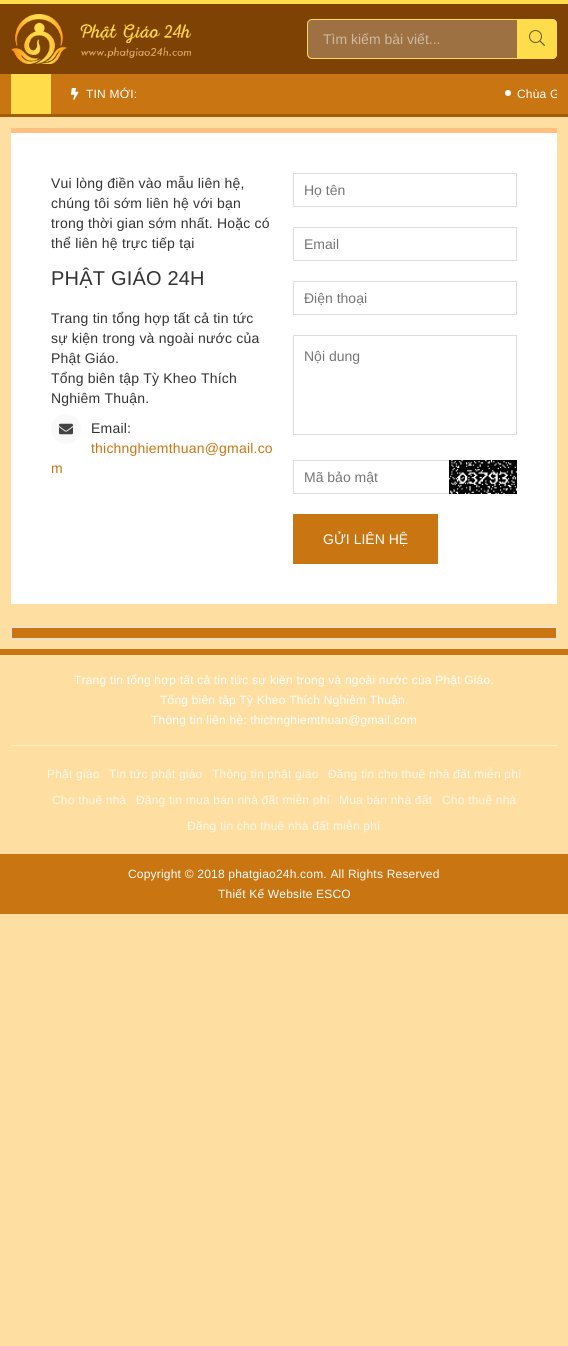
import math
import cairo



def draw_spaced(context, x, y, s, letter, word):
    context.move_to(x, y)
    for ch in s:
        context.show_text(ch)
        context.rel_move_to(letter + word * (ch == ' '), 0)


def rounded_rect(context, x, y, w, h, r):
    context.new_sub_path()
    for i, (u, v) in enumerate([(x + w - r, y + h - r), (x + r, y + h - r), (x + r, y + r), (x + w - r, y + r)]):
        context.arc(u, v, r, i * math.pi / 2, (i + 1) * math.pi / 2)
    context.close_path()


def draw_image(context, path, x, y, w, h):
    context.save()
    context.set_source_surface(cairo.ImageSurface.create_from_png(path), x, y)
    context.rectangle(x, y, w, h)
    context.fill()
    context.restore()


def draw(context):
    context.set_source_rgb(1, 222 / 255, 161 / 255)
    context.paint()
    context.set_source_rgb(126 / 255, 66 / 255, 4 / 255)
    context.rectangle(0, 4, 568, 70)
    context.fill()
    context.set_source_rgb(1, 220 / 255, 74 / 255)
    context.rectangle(0, 0, 568, 4)
    context.fill()
    draw_image(context, "images/1.png", 11, 14, 180, 50)
    context.set_source_rgb(158 / 255, 113 / 255, 67 / 255)
    rounded_rect(context, 307.5, 19.5, 249, 39, 4.5)
    context.fill_preserve()
    context.set_source_rgb(1, 220 / 255, 74 / 255)
    context.set_line_width(1)
    context.stroke()
    context.new_path()
    context.move_to(517, 19)
    context.line_to(552, 19)
    context.curve_to(555, 19, 557, 21, 557, 24)
    context.line_to(557, 54)
    context.curve_to(557, 57, 555, 59, 552, 59)
    context.line_to(517, 59)
    context.close_path()
    context.fill()
    draw_image(context, "images/2.png", 529, 30, 16, 16)
    context.set_source_rgb(201 / 255, 117 / 255, 18 / 255)
    context.rectangle(0, 74, 568, 40)
    context.fill()
    context.set_source_rgb(163 / 255, 92 / 255, 8 / 255)
    context.rectangle(0, 114, 568, 3)
    context.fill()
    context.set_source_rgb(1, 220 / 255, 74 / 255)
    context.rectangle(11, 74, 40, 40)
    context.fill()
    draw_image(context, "images/3.png", 71, 88, 8, 12)
    context.set_source_rgb(1, 1, 1)
    context.arc(508, 93, 3, 0, 2 * math.pi)
    context.fill()
    context.rectangle(11, 133, 546, 471)
    context.fill()
    context.set_source_rgb(1, 191 / 255, 128 / 255)
    context.rectangle(11, 128, 546, 5)
    context.fill()
    context.set_source_rgb(249 / 255, 249 / 255, 249 / 255)
    context.arc(66, 429, 15, 0, 2 * math.pi)
    context.fill()
    draw_image(context, "images/4.png", 59, 423, 14, 12)
    context.rectangle(293.5, 173.5, 223, 33)
    context.set_source_rgb(221 / 255, 221 / 255, 221 / 255)
    context.stroke()
    context.rectangle(293.5, 227.5, 223, 33)
    context.stroke()
    context.rectangle(293.5, 281.5, 223, 33)
    context.stroke()
    context.rectangle(293.5, 335.5, 223, 99)
    context.stroke()
    context.rectangle(293.5, 460.5, 223, 33)
    context.stroke()
    draw_image(context, "images/5.png", 449, 460, 68, 34)
    context.set_source_rgb(201 / 255, 117 / 255, 18 / 255)
    context.rectangle(293, 514, 145, 50)
    context.fill()
    context.rectangle(11.5, 627.5, 545, 11)
    context.fill_preserve()
    context.set_source_rgb(224 / 255, 228 / 255, 234 / 255)
    context.stroke()
    context.set_source_rgb(201 / 255, 117 / 255, 18 / 255)
    context.rectangle(0, 649, 568, 6)
    context.fill()
    context.set_source_rgb(1, 235 / 255, 199 / 255)
    context.rectangle(11, 745, 546, 1)
    context.fill()
    context.set_source_rgb(201 / 255, 117 / 255, 18 / 255)
    context.rectangle(0, 854, 568, 60)
    context.fill()
    context.select_font_face("Liberation Sans")
    context.set_font_size(14)
    context.set_source_rgb(207 / 255, 184 / 255, 161 / 255)
    context.move_to(323, 44)
    context.show_text("Tìm kiếm bài viết...")
    context.set_font_size(12)
    context.set_source_rgb(1, 1, 1)
    draw_spaced(context, 86, 98, "TIN MỚI:", 0.2, 0)
    context.save()
    context.rectangle(151, 74, 406, 40)
    context.clip()
    draw_spaced(context, 517, 98, "Chùa G", 0.2, 0)
    context.restore()
    context.set_font_size(14)
    context.set_source_rgb(51 / 255, 51 / 255, 51 / 255)
    draw_spaced(context, 51, 188, "Vui lòng điền vào mẫu liên hệ,", 0.2, 0)
    draw_spaced(context, 51, 208, "chúng tôi sớm liên hệ với bạn", 0.2, 0)
    draw_spaced(context, 51, 228, "trong thời gian sớm nhất. Hoặc có", 0.2, 0)
    draw_spaced(context, 51, 248, "thể liên hệ trực tiếp tại", 0.2, 0)
    context.set_font_size(20)
    draw_spaced(context, 51, 285, "PHẬT GIÁO 24H", 0.2, 0)
    context.set_font_size(14)
    draw_spaced(context, 51, 323, "Trang tin tổng hợp tất cả tin tức", 0.2, 0)
    draw_spaced(context, 51, 343, "sự kiện trong và ngoài nước của", 0.2, 0)
    draw_spaced(context, 51, 363, "Phật Giáo.", 0.2, 0)
    draw_spaced(context, 51, 383, "Tổng biên tập Tỳ Kheo Thích", 0.2, 0)
    draw_spaced(context, 51, 403, "Nghiêm Thuận.", 0.2, 0)
    draw_spaced(context, 91, 433, "Email:", 0.2, 0)
    context.set_source_rgb(201 / 255, 117 / 255, 18 / 255)
    draw_spaced(context, 91, 453, "thichnghiemthuan@gmail.co", 0.2, 0)
    draw_spaced(context, 51, 473, "m", 0.2, 0)
    context.set_source_rgb(117 / 255, 117 / 255, 117 / 255)
    context.move_to(304, 195)
    context.show_text("Họ tên")
    context.move_to(304, 249)
    context.show_text("Email")
    context.move_to(304, 303)
    context.show_text("Điện thoại")
    context.move_to(304, 361)
    context.show_text("Nội dung")
    context.move_to(304, 482)
    context.show_text("Mã bảo mật")
    context.set_source_rgb(1, 1, 1)
    context.move_to(323, 544)
    context.show_text("GỬI LIÊN HỆ")
    context.set_font_size(12)
    draw_spaced(context, 74, 684, "Trang tin tổng hợp tất cả tin tức sự kiện trong và ngoài nước của Phật Giáo.", 0.2, 0)
    draw_spaced(context, 160, 704, "Tổng biên tập Tỳ Kheo Thích Nghiêm Thuận.", 0.2, 0)
    draw_spaced(context, 151, 724, "Thông tin liên hệ: thichnghiemthuan@gmail.com", 0.2, 0)
    context.set_source_rgb(1, 248 / 255, 236 / 255)
    draw_spaced(context, 47, 778, "Phật giáo", 0.2, 0)
    draw_spaced(context, 109, 778, "Tin tức phật giáo", 0.2, 0)
    draw_spaced(context, 212, 778, "Thông tin phật giáo", 0.2, 0)
    draw_spaced(context, 328, 778, "Đăng tin cho thuê nhà đất miễn phí", 0.2, 0)
    draw_spaced(context, 52, 804, "Cho thuê nhà", 0.2, 0)
    draw_spaced(context, 136, 804, "Đăng tin mua bán nhà đất miễn phí", 0.2, 0)
    draw_spaced(context, 339, 804, "Mua bán nhà đất", 0.2, 0)
    draw_spaced(context, 442, 804, "Cho thuê nhà", 0.2, 0)
    draw_spaced(context, 187, 830, "Đăng tin cho thuê nhà đất miễn phí", 0.2, 0)
    context.set_source_rgb(1, 1, 1)
    draw_spaced(context, 128, 878, "Copyright © 2018 phatgiao24h.com. All Rights Reserved", 0.2, 0)
    draw_spaced(context, 218, 898, "Thiết Kế Website ESCO", 0.2, 0)


surface = cairo.ImageSurface(cairo.Format.RGB24, 568, 1346)
context = cairo.Context(surface)
options = cairo.FontOptions()
options.set_hint_metrics(cairo.HintMetrics.OFF)
options.set_hint_style(cairo.HintStyle.NONE)
context.set_font_options(options)
context.set_miter_limit(4)
draw(context)
surface.write_to_png("out.png")
